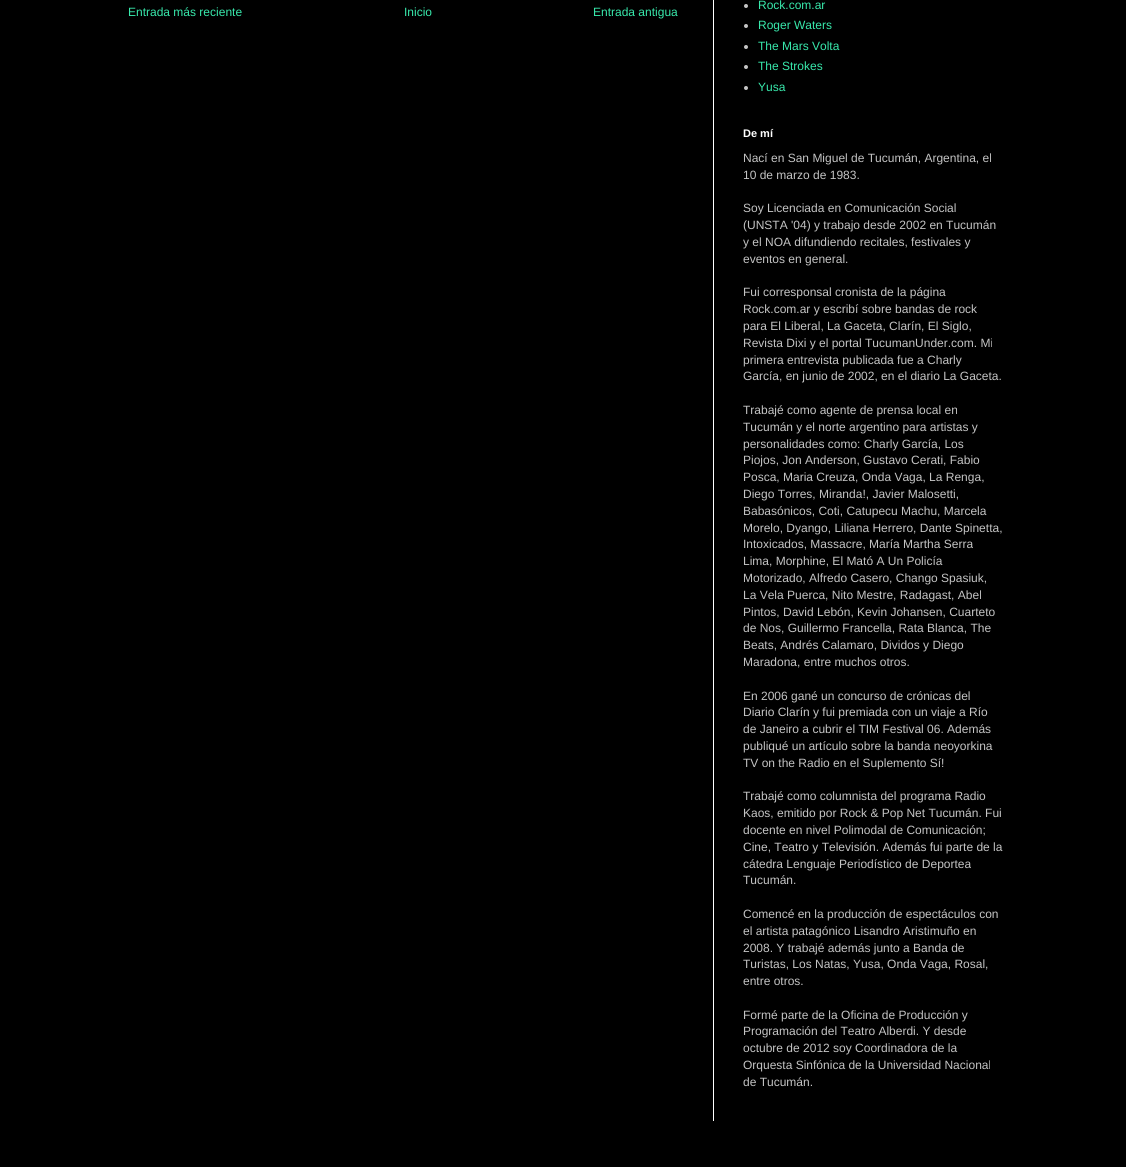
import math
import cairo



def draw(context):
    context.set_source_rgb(0, 0, 0)
    context.paint()
    context.set_source_rgb(196 / 255, 196 / 255, 196 / 255)
    context.arc(746, 6, 2, 0, 2 * math.pi)
    context.fill()
    context.arc(746, 26, 2, 0, 2 * math.pi)
    context.fill()
    context.arc(746, 47, 2, 0, 2 * math.pi)
    context.fill()
    context.arc(746, 67, 2, 0, 2 * math.pi)
    context.fill()
    context.arc(746, 88, 2, 0, 2 * math.pi)
    context.fill()
    context.set_source_rgb(1, 1, 1)
    context.rectangle(713, 0, 1, 1121)
    context.fill()
    context.select_font_face("Liberation Sans")
    context.set_font_size(12)
    context.set_source_rgb(56 / 255, 233 / 255, 172 / 255)
    context.move_to(128, 16)
    context.show_text("Entrada más reciente")
    context.move_to(404, 16)
    context.show_text("Inicio")
    context.move_to(593, 16)
    context.show_text("Entrada antigua")
    context.move_to(758, 9)
    context.show_text("Rock.com.ar")
    context.move_to(758, 29)
    context.show_text("Roger Waters")
    context.move_to(758, 50)
    context.show_text("The Mars Volta")
    context.move_to(758, 70)
    context.show_text("The Strokes")
    context.move_to(758, 91)
    context.show_text("Yusa")
    context.select_font_face("Liberation Sans", cairo.FontSlant.NORMAL, cairo.FontWeight.BOLD)
    context.set_font_size(11)
    context.set_source_rgb(1, 1, 1)
    context.move_to(743, 137)
    context.show_text("De mí")
    context.select_font_face("Liberation Sans")
    context.set_font_size(12)
    context.set_source_rgb(196 / 255, 196 / 255, 196 / 255)
    context.move_to(743, 162)
    context.show_text("Nací en San Miguel de Tucumán, Argentina, el")
    context.move_to(743, 179)
    context.show_text("10 de marzo de 1983.")
    context.move_to(743, 212)
    context.show_text("Soy Licenciada en Comunicación Social")
    context.move_to(743, 229)
    context.show_text("(UNSTA '04) y trabajo desde 2002 en Tucumán")
    context.move_to(743, 246)
    context.show_text("y el NOA difundiendo recitales, festivales y")
    context.move_to(743, 263)
    context.show_text("eventos en general.")
    context.move_to(743, 296)
    context.show_text("Fui corresponsal cronista de la página")
    context.move_to(743, 313)
    context.show_text("Rock.com.ar y escribí sobre bandas de rock")
    context.move_to(743, 330)
    context.show_text("para El Liberal, La Gaceta, Clarín, El Siglo,")
    context.move_to(743, 347)
    context.show_text("Revista Dixi y el portal TucumanUnder.com. Mi")
    context.move_to(743, 364)
    context.show_text("primera entrevista publicada fue a Charly")
    context.move_to(743, 380)
    context.show_text("García, en junio de 2002, en el diario La Gaceta.")
    context.move_to(743, 414)
    context.show_text("Trabajé como agente de prensa local en")
    context.move_to(743, 431)
    context.show_text("Tucumán y el norte argentino para artistas y")
    context.move_to(743, 448)
    context.show_text("personalidades como: Charly García, Los")
    context.move_to(743, 464)
    context.show_text("Piojos, Jon Anderson, Gustavo Cerati, Fabio")
    context.move_to(743, 481)
    context.show_text("Posca, Maria Creuza, Onda Vaga, La Renga,")
    context.move_to(743, 498)
    context.show_text("Diego Torres, Miranda!, Javier Malosetti,")
    context.move_to(743, 515)
    context.show_text("Babasónicos, Coti, Catupecu Machu, Marcela")
    context.move_to(743, 532)
    context.show_text("Morelo, Dyango, Liliana Herrero, Dante Spinetta,")
    context.move_to(743, 548)
    context.show_text("Intoxicados, Massacre, María Martha Serra")
    context.move_to(743, 565)
    context.show_text("Lima, Morphine, El Mató A Un Policía")
    context.move_to(743, 582)
    context.show_text("Motorizado, Alfredo Casero, Chango Spasiuk,")
    context.move_to(743, 599)
    context.show_text("La Vela Puerca, Nito Mestre, Radagast, Abel")
    context.move_to(743, 616)
    context.show_text("Pintos, David Lebón, Kevin Johansen, Cuarteto")
    context.move_to(743, 632)
    context.show_text("de Nos, Guillermo Francella, Rata Blanca, The")
    context.move_to(743, 649)
    context.show_text("Beats, Andrés Calamaro, Dividos y Diego")
    context.move_to(743, 666)
    context.show_text("Maradona, entre muchos otros.")
    context.move_to(743, 700)
    context.show_text("En 2006 gané un concurso de crónicas del")
    context.move_to(743, 716)
    context.show_text("Diario Clarín y fui premiada con un viaje a Río")
    context.move_to(743, 733)
    context.show_text("de Janeiro a cubrir el TIM Festival 06. Además")
    context.move_to(743, 750)
    context.show_text("publiqué un artículo sobre la banda neoyorkina")
    context.move_to(743, 767)
    context.show_text("TV on the Radio en el Suplemento Sí!")
    context.move_to(743, 800)
    context.show_text("Trabajé como columnista del programa Radio")
    context.move_to(743, 817)
    context.show_text("Kaos, emitido por Rock & Pop Net Tucumán. Fui")
    context.move_to(743, 834)
    context.show_text("docente en nivel Polimodal de Comunicación;")
    context.move_to(743, 851)
    context.show_text("Cine, Teatro y Televisión. Además fui parte de la")
    context.move_to(743, 868)
    context.show_text("cátedra Lenguaje Periodístico de Deportea")
    context.move_to(743, 884)
    context.show_text("Tucumán.")
    context.move_to(743, 918)
    context.show_text("Comencé en la producción de espectáculos con")
    context.move_to(743, 935)
    context.show_text("el artista patagónico Lisandro Aristimuño en")
    context.move_to(743, 952)
    context.show_text("2008. Y trabajé además junto a Banda de")
    context.move_to(743, 968)
    context.show_text("Turistas, Los Natas, Yusa, Onda Vaga, Rosal,")
    context.move_to(743, 985)
    context.show_text("entre otros.")
    context.move_to(743, 1019)
    context.show_text("Formé parte de la Oficina de Producción y")
    context.move_to(743, 1035)
    context.show_text("Programación del Teatro Alberdi. Y desde")
    context.move_to(743, 1052)
    context.show_text("octubre de 2012 soy Coordinadora de la")
    context.move_to(743, 1069)
    context.show_text("Orquesta Sinfónica de la Universidad Nacional")
    context.move_to(743, 1086)
    context.show_text("de Tucumán.")


surface = cairo.ImageSurface(cairo.Format.RGB24, 1126, 1167)
context = cairo.Context(surface)
options = cairo.FontOptions()
options.set_hint_metrics(cairo.HintMetrics.OFF)
options.set_hint_style(cairo.HintStyle.NONE)
context.set_font_options(options)
context.set_miter_limit(4)
draw(context)
surface.write_to_png("out.png")
